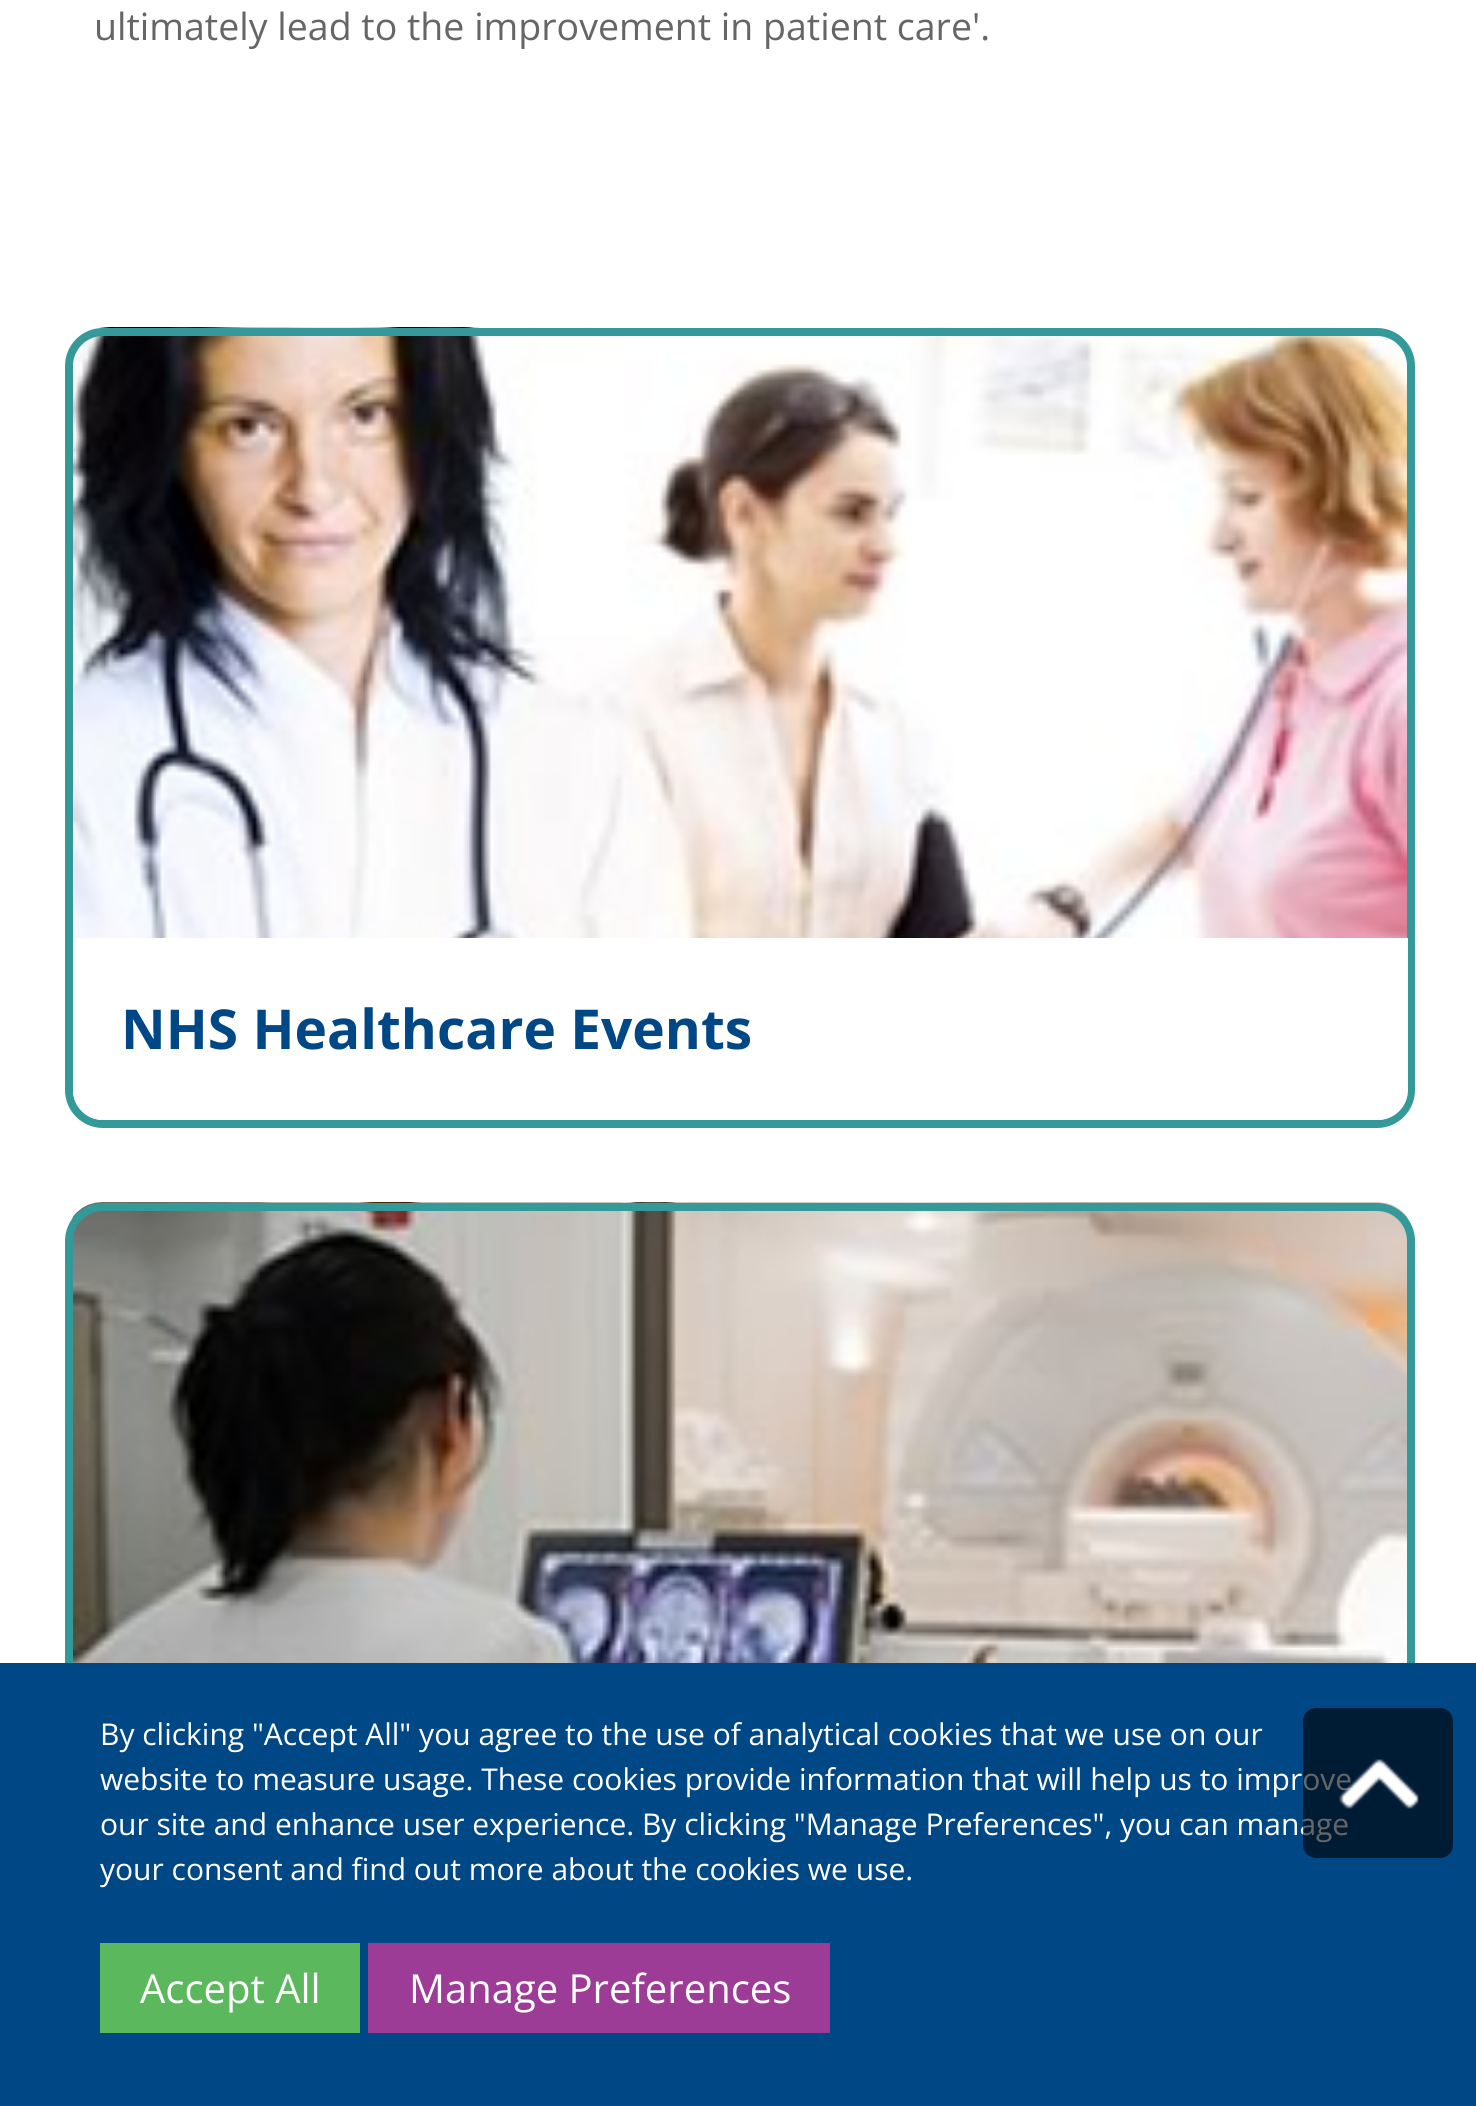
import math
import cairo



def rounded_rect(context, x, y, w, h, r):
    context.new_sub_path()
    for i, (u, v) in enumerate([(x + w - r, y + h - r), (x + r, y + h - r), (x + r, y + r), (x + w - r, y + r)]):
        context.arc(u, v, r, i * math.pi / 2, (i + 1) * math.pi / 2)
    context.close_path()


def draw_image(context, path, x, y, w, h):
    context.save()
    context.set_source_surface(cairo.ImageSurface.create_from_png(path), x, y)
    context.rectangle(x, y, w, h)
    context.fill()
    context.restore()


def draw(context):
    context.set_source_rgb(1, 1, 1)
    context.paint()
    draw_image(context, "images/1.png", 72, 327, 1336, 800)
    rounded_rect(context, 69, 332, 1342, 792, 34)
    context.set_source_rgb(51 / 255, 153 / 255, 153 / 255)
    context.set_line_width(8)
    context.stroke()
    context.set_source_rgb(1, 1, 1)
    context.new_path()
    context.move_to(73, 938)
    context.line_to(1408, 938)
    context.line_to(1408, 1090)
    context.curve_to(1408, 1106.5, 1394.5, 1120, 1378, 1120)
    context.line_to(103, 1120)
    context.curve_to(86.5, 1120, 73, 1106.5, 73, 1090)
    context.close_path()
    context.fill()
    draw_image(context, "images/2.png", 72, 1202, 1336, 461)
    rounded_rect(context, 69, 1207, 1342, 792, 34)
    context.set_source_rgb(51 / 255, 153 / 255, 153 / 255)
    context.stroke()
    context.set_source_rgb(0, 71 / 255, 133 / 255)
    context.rectangle(0, 1663, 1476, 443)
    context.fill()
    context.set_source_rgb(92 / 255, 184 / 255, 92 / 255)
    context.rectangle(100, 1943, 260, 90)
    context.fill()
    context.set_source_rgb(156 / 255, 60 / 255, 150 / 255)
    context.rectangle(368, 1943, 462, 90)
    context.fill()
    context.select_font_face("Open Sans")
    context.set_font_size(37.5)
    context.set_source_rgb(102 / 255, 102 / 255, 102 / 255)
    context.move_to(94, 40)
    context.show_text("ultimately lead to the improvement in patient care'.")
    context.select_font_face("Open Sans", cairo.FontSlant.NORMAL, cairo.FontWeight.BOLD)
    context.set_font_size(55)
    context.set_source_rgb(0, 71 / 255, 133 / 255)
    context.move_to(121, 1049)
    context.show_text("NHS Healthcare Events")
    context.select_font_face("Open Sans")
    context.set_font_size(30)
    context.set_source_rgb(1, 1, 1)
    context.move_to(100, 1745)
    context.show_text("By clicking \"Accept All\" you agree to the use of analytical cookies that we use on our")
    context.move_to(100, 1790)
    context.show_text("website to measure usage. These cookies provide information that will help us to improve")
    context.move_to(100, 1835)
    context.show_text("our site and enhance user experience. By clicking \"Manage Preferences\", you can manage")
    context.move_to(100, 1880)
    context.show_text("your consent and find out more about the cookies we use.")
    context.set_font_size(40)
    context.move_to(140, 2003)
    context.show_text("Accept All")
    context.move_to(409, 2003)
    context.show_text("Manage Preferences")
    context.set_source_rgba(0, 0, 0, 0.6)
    rounded_rect(context, 1303, 1708, 150, 150, 13)
    context.fill()
    draw_image(context, "images/3.png", 1339, 1759, 80, 50)


surface = cairo.ImageSurface(cairo.Format.RGB24, 1476, 2106)
context = cairo.Context(surface)
options = cairo.FontOptions()
options.set_hint_metrics(cairo.HintMetrics.OFF)
options.set_hint_style(cairo.HintStyle.NONE)
context.set_font_options(options)
context.set_miter_limit(4)
draw(context)
surface.write_to_png("out.png")
